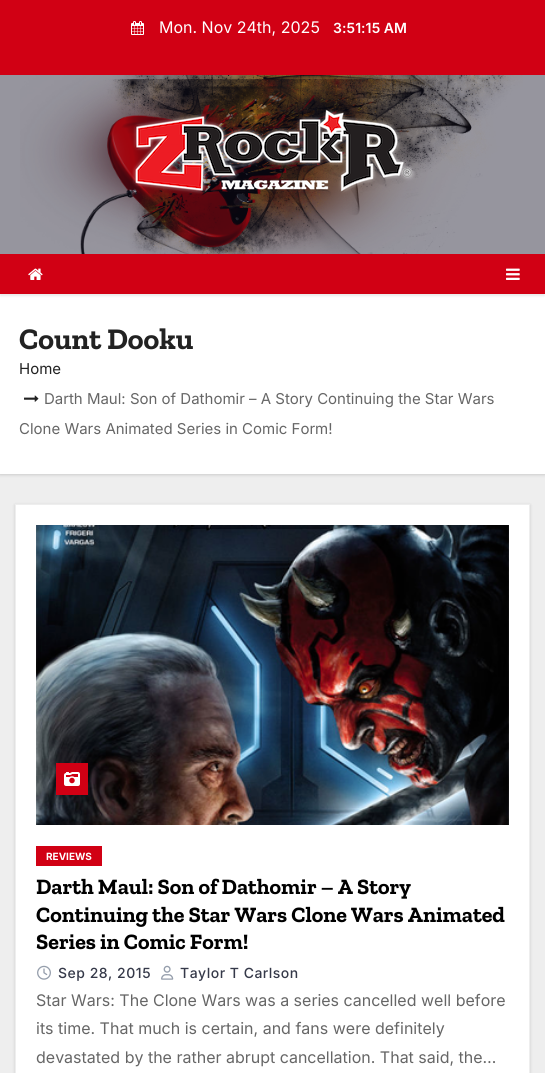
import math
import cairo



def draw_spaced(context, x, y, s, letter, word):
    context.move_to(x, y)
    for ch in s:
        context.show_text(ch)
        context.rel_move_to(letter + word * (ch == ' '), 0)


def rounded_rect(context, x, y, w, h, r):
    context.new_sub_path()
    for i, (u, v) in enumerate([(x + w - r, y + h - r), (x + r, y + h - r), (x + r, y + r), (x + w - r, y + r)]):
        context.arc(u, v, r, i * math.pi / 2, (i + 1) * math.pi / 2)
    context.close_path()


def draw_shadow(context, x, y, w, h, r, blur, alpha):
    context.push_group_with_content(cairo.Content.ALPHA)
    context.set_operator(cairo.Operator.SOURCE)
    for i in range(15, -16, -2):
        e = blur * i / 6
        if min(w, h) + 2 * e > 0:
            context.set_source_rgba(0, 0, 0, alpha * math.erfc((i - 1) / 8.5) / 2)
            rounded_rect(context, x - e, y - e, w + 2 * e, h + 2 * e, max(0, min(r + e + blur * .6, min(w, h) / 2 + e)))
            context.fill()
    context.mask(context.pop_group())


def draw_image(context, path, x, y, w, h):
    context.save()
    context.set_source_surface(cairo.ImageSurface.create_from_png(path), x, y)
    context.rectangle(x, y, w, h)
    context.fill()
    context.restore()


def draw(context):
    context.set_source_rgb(238 / 255, 238 / 255, 238 / 255)
    context.paint()
    context.set_source_rgb(150 / 255, 149 / 255, 158 / 255)
    context.rectangle(0, 75, 545, 179)
    context.fill()
    context.set_source_rgb(209 / 255, 0, 20 / 255)
    context.rectangle(0, 0, 545, 75)
    context.fill()
    draw_image(context, "images/1.png", 131, 21, 13, 14)
    draw_image(context, "images/2.png", 20, 75, 503, 179)
    draw_image(context, "images/3.png", 132, 108, 283, 86)
    context.set_source_rgb(0, 0, 0)
    draw_shadow(context, 0, 295, 545, 180, 0, 1.5, 0.15)
    context.set_source_rgb(1, 1, 1)
    context.rectangle(0, 294, 545, 180)
    context.fill()
    context.set_source_rgb(0, 0, 0)
    draw_shadow(context, 0, 256, 545, 40, 0, 1, 0.08)
    context.set_source_rgb(209 / 255, 0, 20 / 255)
    context.rectangle(0, 254, 545, 40)
    context.fill()
    draw_image(context, "images/4.png", 28, 268, 15, 12)
    draw_image(context, "images/5.png", 506, 268, 14, 12)
    draw_image(context, "images/6.png", 24, 395, 15, 7)
    context.set_source_rgb(0, 0, 0)
    draw_shadow(context, 15, 505, 515, 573, 0, 1.5, 0.15)
    context.set_source_rgb(1, 1, 1)
    context.rectangle(15.5, 504.5, 514, 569)
    context.fill_preserve()
    context.set_source_rgb(238 / 255, 238 / 255, 238 / 255)
    context.set_line_width(1)
    context.stroke()
    draw_image(context, "images/7.png", 36, 525, 473, 300)
    context.set_source_rgb(209 / 255, 0, 20 / 255)
    context.rectangle(56, 763, 32, 32)
    context.fill()
    draw_image(context, "images/8.png", 64, 772, 16, 14)
    context.rectangle(36, 846, 66, 20)
    context.fill()
    draw_image(context, "images/9.png", 37, 965, 14, 15)
    draw_image(context, "images/10.png", 161, 965, 13, 15)
    context.select_font_face("Inter")
    context.set_font_size(16)
    context.set_source_rgb(1, 1, 1)
    context.move_to(159, 33)
    context.show_text("Mon. Nov 24th, 2025")
    context.select_font_face("Inter SemiBold")
    context.set_font_size(14)
    context.move_to(333, 33)
    context.show_text("3:51:15 AM")
    context.select_font_face("Zilla Slab", cairo.FontSlant.NORMAL, cairo.FontWeight.BOLD)
    context.set_font_size(30)
    context.set_source_rgb(34 / 255, 34 / 255, 34 / 255)
    context.move_to(19, 349)
    context.show_text("Count Dooku")
    context.select_font_face("Inter")
    context.set_font_size(15)
    context.move_to(19, 374)
    context.show_text("Home")
    context.set_source_rgb(102 / 255, 102 / 255, 102 / 255)
    context.move_to(44, 404)
    context.show_text("Darth Maul: Son of Dathomir – A Story Continuing the Star Wars")
    context.move_to(19, 434)
    context.show_text("Clone Wars Animated Series in Comic Form!")
    context.select_font_face("Inter", cairo.FontSlant.NORMAL, cairo.FontWeight.BOLD)
    context.set_font_size(10)
    context.set_source_rgb(1, 1, 1)
    context.move_to(46, 860)
    context.show_text("REVIEWS")
    context.select_font_face("Zilla Slab", cairo.FontSlant.NORMAL, cairo.FontWeight.BOLD)
    context.set_font_size(22)
    context.set_source_rgb(0, 0, 0)
    context.move_to(36, 894)
    context.show_text("Darth Maul: Son of Dathomir – A Story")
    context.move_to(36, 922)
    context.show_text("Continuing the Star Wars Clone Wars Animated")
    context.move_to(36, 949)
    context.show_text("Series in Comic Form!")
    context.select_font_face("Inter Medium")
    context.set_font_size(14)
    context.set_source_rgb(53 / 255, 57 / 255, 73 / 255)
    draw_spaced(context, 58, 978, "Sep 28, 2015", 0.5, 0)
    draw_spaced(context, 180, 978, "Taylor T Carlson", 0.5, 0)
    context.select_font_face("Inter")
    context.set_font_size(16)
    context.set_source_rgb(102 / 255, 102 / 255, 102 / 255)
    context.move_to(36, 1006)
    context.show_text("Star Wars: The Clone Wars was a series cancelled well before")
    context.move_to(36, 1034)
    context.show_text("its time. That much is certain, and fans were definitely")
    context.move_to(36, 1063)
    context.show_text("devastated by the rather abrupt cancellation. That said, the…")


surface = cairo.ImageSurface(cairo.Format.RGB24, 545, 1073)
context = cairo.Context(surface)
options = cairo.FontOptions()
options.set_hint_metrics(cairo.HintMetrics.OFF)
options.set_hint_style(cairo.HintStyle.NONE)
context.set_font_options(options)
context.set_miter_limit(4)
draw(context)
surface.write_to_png("out.png")
